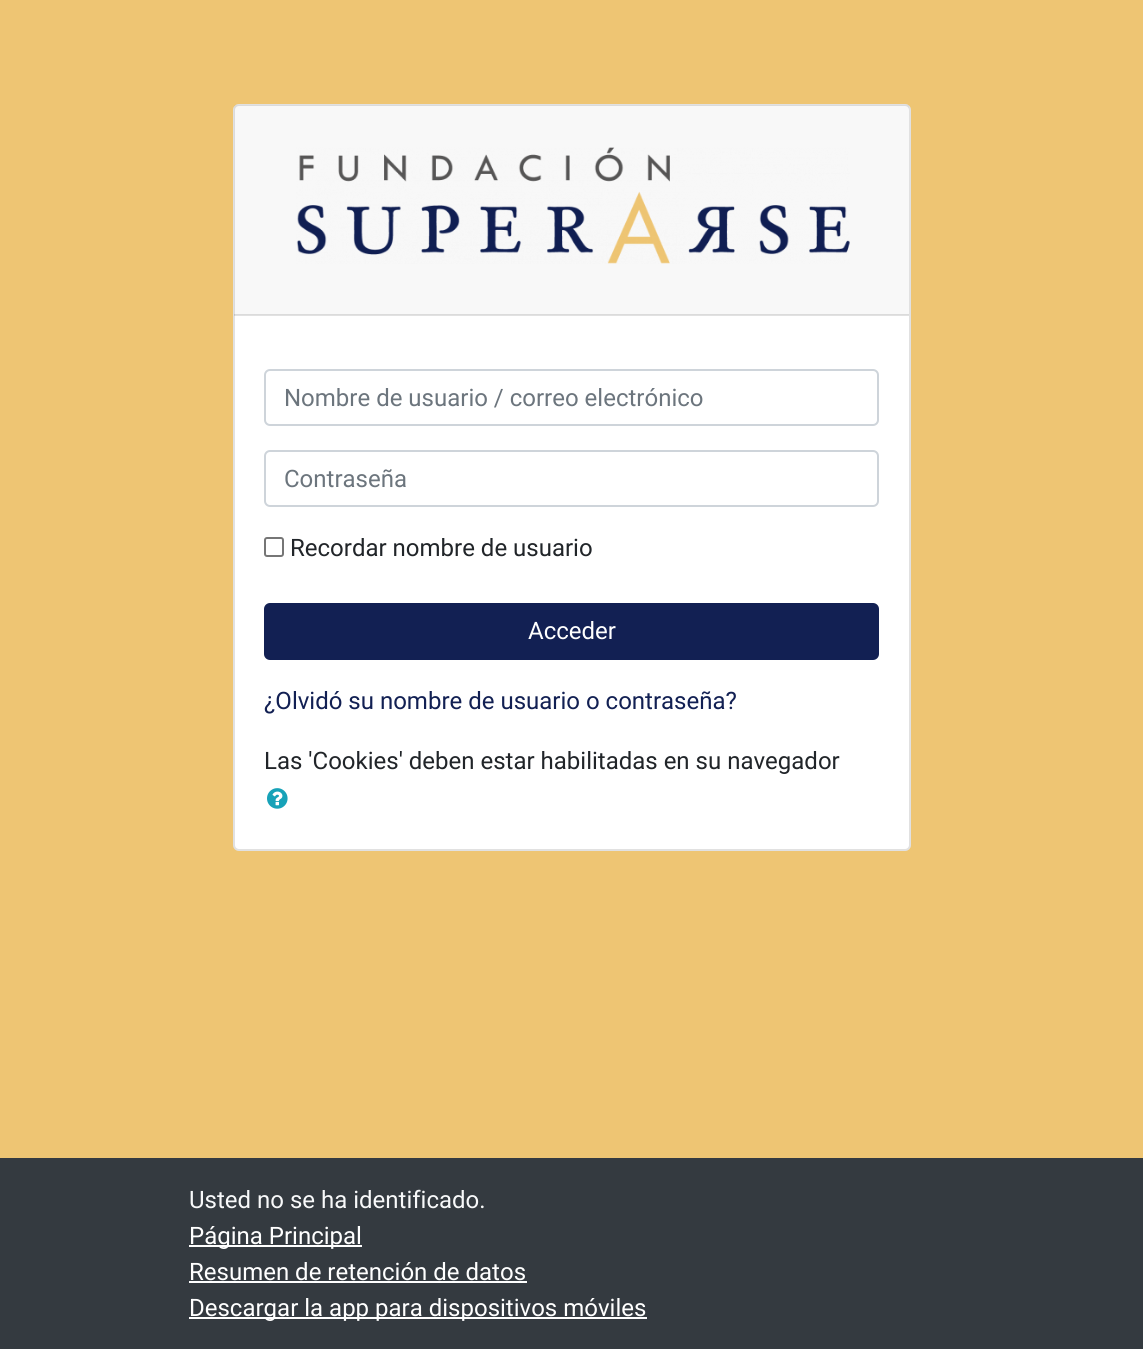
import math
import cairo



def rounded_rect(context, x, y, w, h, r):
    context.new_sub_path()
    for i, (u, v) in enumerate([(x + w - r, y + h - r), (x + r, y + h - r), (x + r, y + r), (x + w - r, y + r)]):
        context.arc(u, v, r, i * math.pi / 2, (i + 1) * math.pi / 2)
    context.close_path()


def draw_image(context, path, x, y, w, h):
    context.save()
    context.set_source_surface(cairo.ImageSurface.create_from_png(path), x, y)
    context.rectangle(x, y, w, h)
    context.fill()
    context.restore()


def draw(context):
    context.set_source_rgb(238 / 255, 197 / 255, 115 / 255)
    context.paint()
    context.set_source_rgb(1, 1, 1)
    rounded_rect(context, 233, 104, 678, 747, 6)
    context.fill()
    rounded_rect(context, 234, 105, 676, 745, 5)
    context.set_source_rgba(0, 0, 0, 0.12)
    context.stroke()
    context.set_source_rgba(0, 0, 0, 0.03)
    context.rectangle(234, 105, 675, 210)
    context.fill()
    context.set_source_rgba(0, 0, 0, 0.12)
    context.rectangle(234, 314, 675, 2)
    context.fill()
    draw_image(context, "images/1.png", 296, 147, 554, 117)
    rounded_rect(context, 265, 370, 613, 55, 5)
    context.set_source_rgb(206 / 255, 212 / 255, 218 / 255)
    context.stroke()
    rounded_rect(context, 265, 451, 613, 55, 5)
    context.stroke()
    rounded_rect(context, 265, 538, 18, 18, 2)
    context.set_source_rgb(118 / 255, 118 / 255, 118 / 255)
    context.stroke()
    context.set_source_rgb(18 / 255, 32 / 255, 83 / 255)
    rounded_rect(context, 265, 604, 613, 55, 5)
    context.fill_preserve()
    context.stroke()
    draw_image(context, "images/2.png", 267, 788, 21, 21)
    context.set_source_rgb(52 / 255, 58 / 255, 64 / 255)
    context.rectangle(0, 1158, 1143, 191)
    context.fill()
    context.set_source_rgb(1, 1, 1)
    context.rectangle(189, 1245, 173, 2)
    context.fill()
    context.rectangle(189, 1281, 338, 2)
    context.fill()
    context.rectangle(189, 1317, 458, 2)
    context.fill()
    context.select_font_face("Roboto")
    context.set_font_size(24)
    context.set_source_rgb(108 / 255, 117 / 255, 125 / 255)
    context.move_to(284, 406)
    context.show_text("Nombre de usuario / correo electrónico")
    context.move_to(284, 487)
    context.show_text("Contraseña")
    context.set_source_rgb(33 / 255, 37 / 255, 41 / 255)
    context.move_to(290, 556)
    context.show_text("Recordar nombre de usuario")
    context.set_source_rgb(1, 1, 1)
    context.move_to(528, 639)
    context.show_text("Acceder")
    context.set_source_rgb(18 / 255, 32 / 255, 83 / 255)
    context.move_to(264, 709)
    context.show_text("¿Olvidó su nombre de usuario o contraseña?")
    context.set_source_rgb(33 / 255, 37 / 255, 41 / 255)
    context.move_to(264, 769)
    context.show_text("Las 'Cookies' deben estar habilitadas en su navegador")
    context.set_source_rgb(248 / 255, 249 / 255, 250 / 255)
    context.move_to(189, 1208)
    context.show_text("Usted no se ha identificado.")
    context.set_source_rgb(1, 1, 1)
    context.move_to(189, 1244)
    context.show_text("Página Principal")
    context.move_to(189, 1280)
    context.show_text("Resumen de retención de datos")
    context.move_to(189, 1316)
    context.show_text("Descargar la app para dispositivos móviles")


surface = cairo.ImageSurface(cairo.Format.RGB24, 1143, 1349)
context = cairo.Context(surface)
options = cairo.FontOptions()
options.set_hint_metrics(cairo.HintMetrics.OFF)
options.set_hint_style(cairo.HintStyle.NONE)
context.set_font_options(options)
context.set_miter_limit(4)
draw(context)
surface.write_to_png("out.png")
